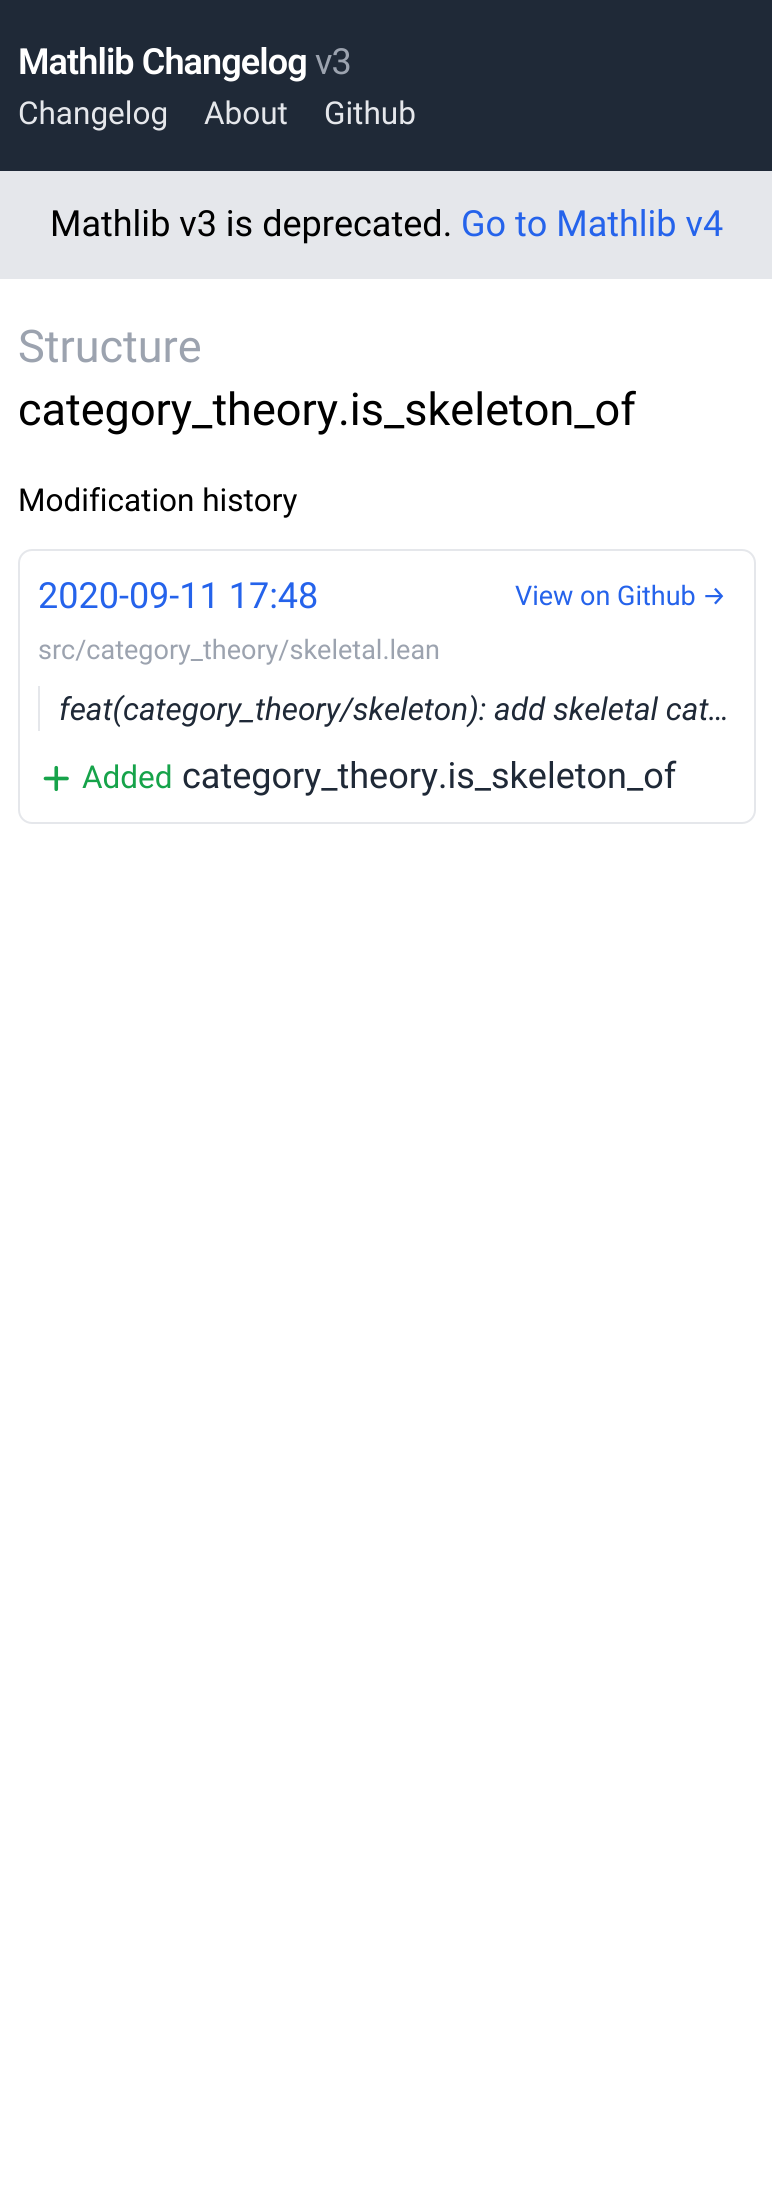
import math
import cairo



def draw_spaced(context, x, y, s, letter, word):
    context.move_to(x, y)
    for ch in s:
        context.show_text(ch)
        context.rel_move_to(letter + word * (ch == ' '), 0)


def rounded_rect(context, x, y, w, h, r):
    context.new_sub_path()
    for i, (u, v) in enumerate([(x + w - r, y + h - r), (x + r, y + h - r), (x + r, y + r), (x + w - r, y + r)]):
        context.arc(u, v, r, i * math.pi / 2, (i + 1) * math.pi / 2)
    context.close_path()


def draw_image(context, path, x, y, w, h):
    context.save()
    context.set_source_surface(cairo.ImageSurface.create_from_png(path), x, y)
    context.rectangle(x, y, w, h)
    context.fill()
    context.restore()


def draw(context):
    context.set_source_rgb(1, 1, 1)
    context.paint()
    context.set_source_rgb(31 / 255, 41 / 255, 55 / 255)
    context.rectangle(0, 0, 772, 171)
    context.fill()
    context.set_source_rgb(229 / 255, 231 / 255, 235 / 255)
    context.rectangle(0, 171, 772, 108)
    context.fill()
    rounded_rect(context, 19, 550, 736, 273, 13)
    context.stroke()
    context.rectangle(38, 686, 2, 45)
    context.fill()
    draw_image(context, "images/1.png", 43, 765, 26, 27)
    context.select_font_face("Roboto SemiBold")
    context.set_font_size(36)
    context.set_source_rgb(1, 1, 1)
    draw_spaced(context, 18, 74, "Mathlib Changelog", -0.9, 0)
    context.select_font_face("Roboto")
    context.set_source_rgb(156 / 255, 163 / 255, 175 / 255)
    draw_spaced(context, 315, 74, "v3", -0.9, 0)
    context.set_font_size(31.5)
    context.set_source_rgb(229 / 255, 231 / 255, 235 / 255)
    context.move_to(18, 124)
    context.show_text("Changelog")
    context.move_to(204, 124)
    context.show_text("About")
    context.move_to(324, 124)
    context.show_text("Github")
    context.set_font_size(36)
    context.set_source_rgb(0, 0, 0)
    context.move_to(50, 236)
    context.show_text("Mathlib v3 is deprecated.")
    context.set_source_rgb(37 / 255, 99 / 255, 235 / 255)
    context.move_to(461, 236)
    context.show_text("Go to Mathlib v4")
    context.set_font_size(45)
    context.set_source_rgb(156 / 255, 163 / 255, 175 / 255)
    context.move_to(18, 362)
    context.show_text("Structure")
    context.set_source_rgb(0, 0, 0)
    context.move_to(18, 425)
    context.show_text("category_theory.is_skeleton_of")
    context.set_font_size(31.5)
    context.move_to(18, 511)
    context.show_text("Modification history")
    context.set_font_size(36)
    context.set_source_rgb(37 / 255, 99 / 255, 235 / 255)
    context.move_to(38, 608)
    context.show_text("2020-09-11 17:48")
    context.set_font_size(27)
    context.set_source_rgb(156 / 255, 163 / 255, 175 / 255)
    context.move_to(38, 659)
    context.show_text("src/category_theory/skeletal.lean")
    context.select_font_face("Roboto", cairo.FontSlant.ITALIC)
    context.set_font_size(31.5)
    context.set_source_rgb(31 / 255, 41 / 255, 55 / 255)
    context.move_to(59, 720)
    context.show_text("feat(category_theory/skeleton): add skeletal cat…")
    context.select_font_face("Roboto")
    context.set_source_rgb(22 / 255, 163 / 255, 74 / 255)
    context.move_to(82, 788)
    context.show_text("Added")
    context.set_font_size(36)
    context.set_source_rgb(31 / 255, 41 / 255, 55 / 255)
    context.move_to(182, 788)
    context.show_text("category_theory.is_skeleton_of")
    context.set_font_size(27)
    context.set_source_rgb(37 / 255, 99 / 255, 235 / 255)
    context.move_to(515, 605)
    context.show_text("View on Github")
    context.select_font_face("Fira Sans")
    context.move_to(702, 605)
    context.show_text("→")


surface = cairo.ImageSurface(cairo.Format.RGB24, 772, 2196)
context = cairo.Context(surface)
options = cairo.FontOptions()
options.set_hint_metrics(cairo.HintMetrics.OFF)
options.set_hint_style(cairo.HintStyle.NONE)
context.set_font_options(options)
context.set_miter_limit(4)
draw(context)
surface.write_to_png("out.png")
